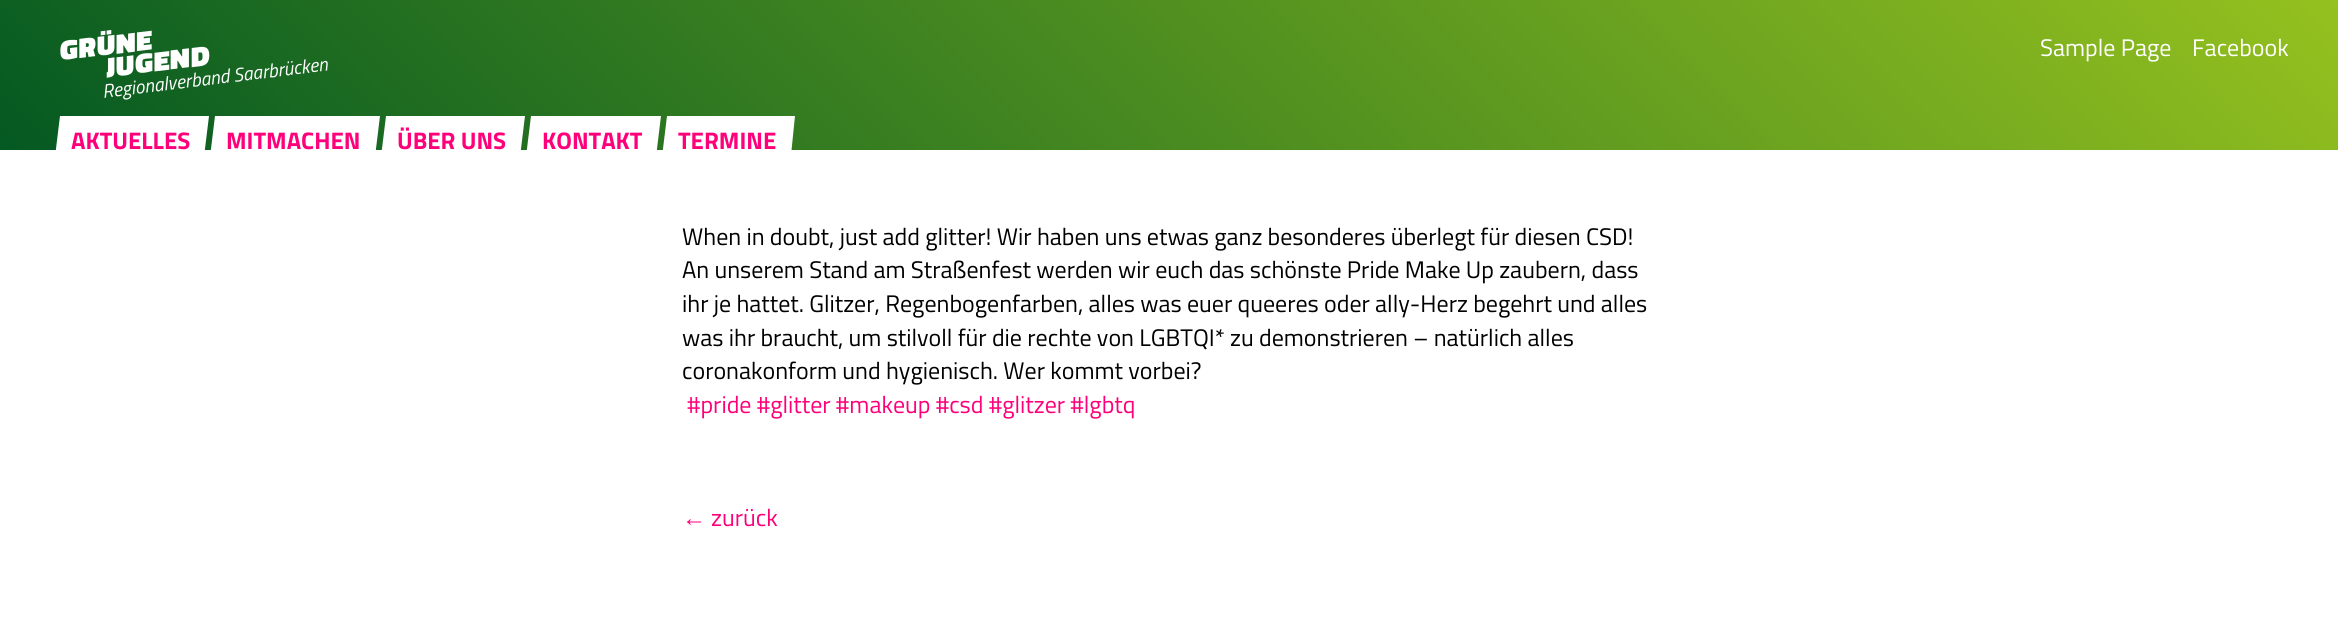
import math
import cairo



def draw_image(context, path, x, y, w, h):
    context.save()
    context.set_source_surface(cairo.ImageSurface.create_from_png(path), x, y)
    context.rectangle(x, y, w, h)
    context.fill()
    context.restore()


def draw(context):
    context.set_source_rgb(1, 1, 1)
    context.paint()
    gradient = cairo.LinearGradient(547, 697, 1791, -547)
    gradient.add_color_stop_rgba(0, 4 / 255, 89 / 255, 34 / 255, 1)
    gradient.add_color_stop_rgba(1, 149 / 255, 193 / 255, 31 / 255, 1)
    context.set_source(gradient)
    context.rectangle(0, 0, 2338, 150)
    context.fill()
    context.set_source_rgb(1, 1, 1)
    context.new_path()
    context.move_to(60, 116)
    context.line_to(209, 116)
    context.line_to(203, 165)
    context.line_to(54, 165)
    context.close_path()
    context.fill()
    context.new_path()
    context.move_to(215, 116)
    context.line_to(380, 116)
    context.line_to(374, 165)
    context.line_to(209, 165)
    context.close_path()
    context.fill()
    context.new_path()
    context.move_to(386, 116)
    context.line_to(525, 116)
    context.line_to(519, 165)
    context.line_to(380, 165)
    context.close_path()
    context.fill()
    context.new_path()
    context.move_to(531, 116)
    context.line_to(661, 116)
    context.line_to(655, 165)
    context.line_to(525, 165)
    context.close_path()
    context.fill()
    context.new_path()
    context.move_to(667, 116)
    context.line_to(795, 116)
    context.line_to(790, 165)
    context.line_to(661, 165)
    context.close_path()
    context.fill()
    draw_image(context, "images/1.png", 60, 30, 150, 48)
    context.select_font_face("Titillium Web")
    context.set_font_size(24)
    context.move_to(2040, 56)
    context.show_text("Sample Page")
    context.move_to(2192, 56)
    context.show_text("Facebook")
    context.select_font_face("Titillium Web", cairo.FontSlant.NORMAL, cairo.FontWeight.BOLD)
    context.set_source_rgb(1, 0, 122 / 255)
    context.move_to(71, 149)
    context.show_text("AKTUELLES")
    context.move_to(226, 149)
    context.show_text("MITMACHEN")
    context.move_to(397, 149)
    context.show_text("ÜBER UNS")
    context.move_to(542, 149)
    context.show_text("KONTAKT")
    context.move_to(678, 149)
    context.show_text("TERMINE")
    context.select_font_face("Titillium Web", cairo.FontSlant.ITALIC)
    context.set_font_size(19.25)
    context.set_source_rgb(1, 1, 1)
    context.save()
    context.translate(103, 98)
    context.rotate(-7 * math.pi / 180)
    context.move_to(0, 0)
    context.show_text("Regionalverband Saarbrücken")
    context.restore()
    context.select_font_face("Titillium Web")
    context.set_font_size(24)
    context.set_source_rgb(0, 0, 0)
    context.move_to(682, 245)
    context.show_text("When in doubt, just add glitter! Wir haben uns etwas ganz besonderes überlegt für diesen CSD!")
    context.move_to(682, 278)
    context.show_text("An unserem Stand am Straßenfest werden wir euch das schönste Pride Make Up zaubern, dass")
    context.move_to(682, 312)
    context.show_text("ihr je hattet. Glitzer, Regenbogenfarben, alles was euer queeres oder ally-Herz begehrt und alles")
    context.move_to(682, 346)
    context.show_text("was ihr braucht, um stilvoll für die rechte von LGBTQI* zu demonstrieren – natürlich alles")
    context.move_to(682, 379)
    context.show_text("coronakonform und hygienisch. Wer kommt vorbei?")
    context.set_source_rgb(1, 0, 122 / 255)
    context.move_to(687, 413)
    context.show_text("#pride #glitter #makeup #csd #glitzer #lgbtq")
    context.select_font_face("Liberation Sans")
    context.move_to(682, 526)
    context.show_text("←")
    context.select_font_face("Titillium Web")
    context.move_to(711, 526)
    context.show_text("zurück")


surface = cairo.ImageSurface(cairo.Format.RGB24, 2338, 617)
context = cairo.Context(surface)
options = cairo.FontOptions()
options.set_hint_metrics(cairo.HintMetrics.OFF)
options.set_hint_style(cairo.HintStyle.NONE)
context.set_font_options(options)
context.set_miter_limit(4)
draw(context)
surface.write_to_png("out.png")
